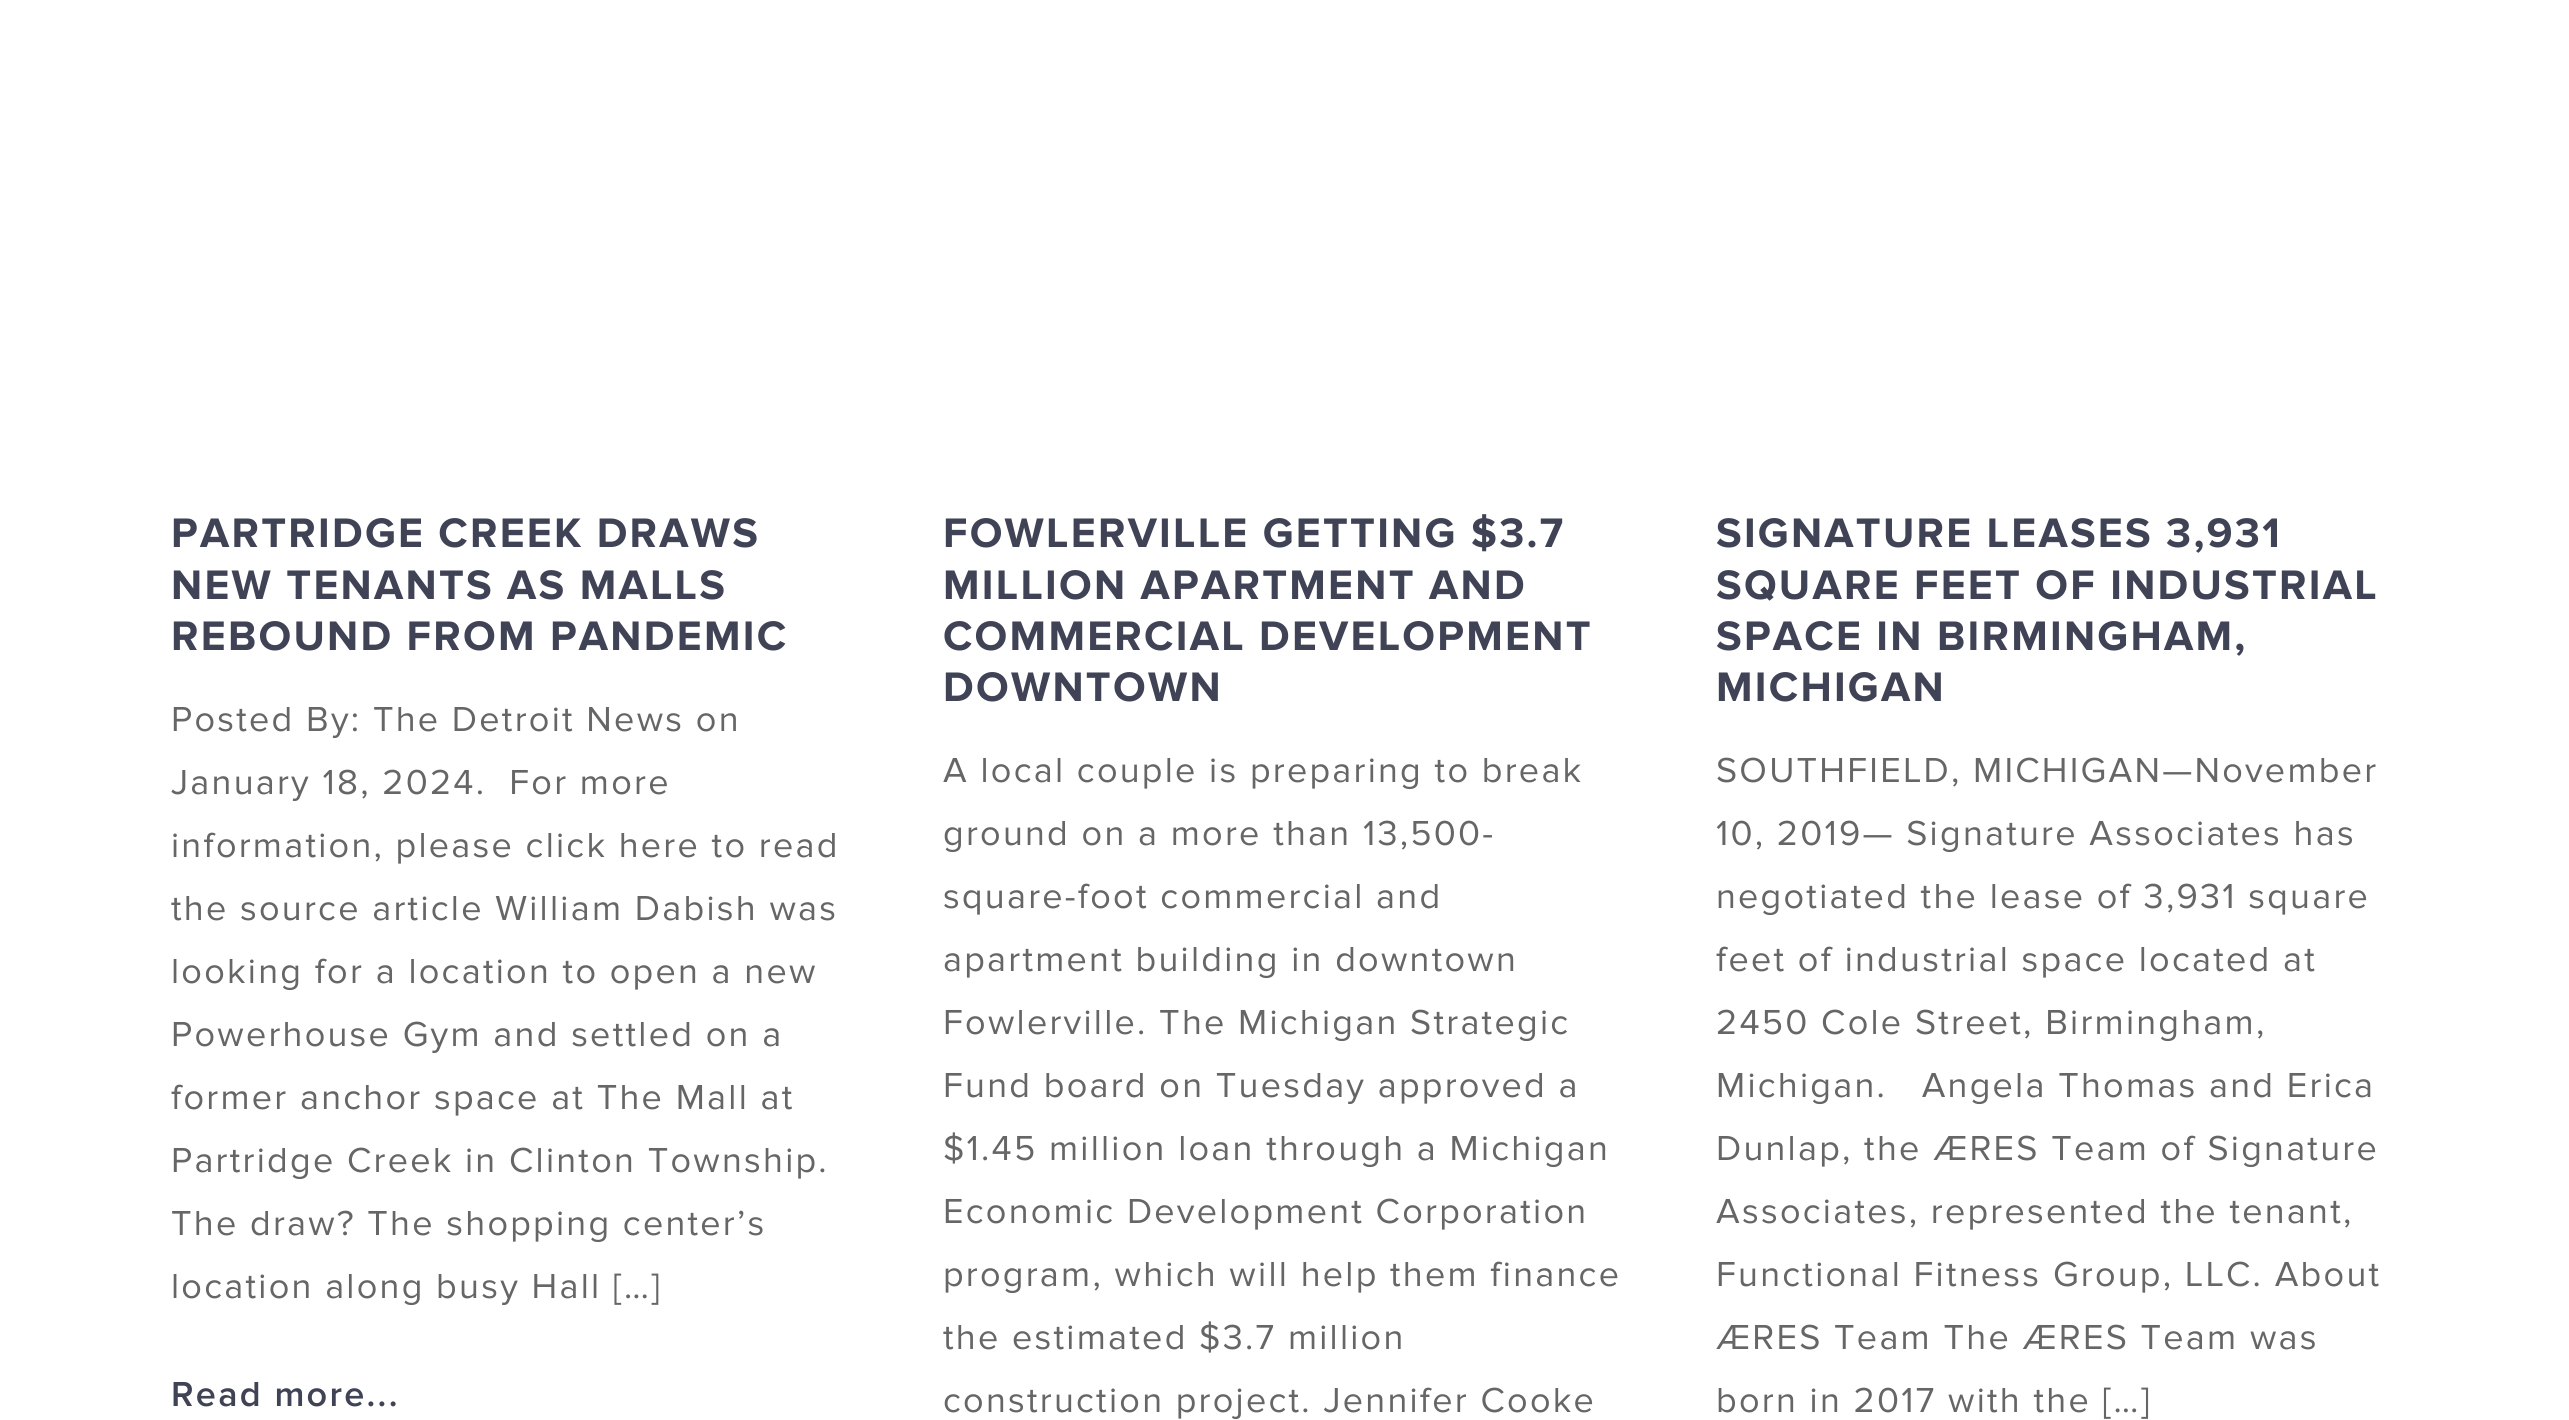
import math
import cairo



def draw_spaced(context, x, y, s, letter, word):
    context.move_to(x, y)
    for ch in s:
        context.show_text(ch)
        context.rel_move_to(letter + word * (ch == ' '), 0)


def draw(context):
    context.set_source_rgb(1, 1, 1)
    context.paint()
    context.select_font_face("Proxima Nova", cairo.FontSlant.NORMAL, cairo.FontWeight.BOLD)
    context.set_font_size(42.75)
    context.set_source_rgb(64 / 255, 67 / 255, 85 / 255)
    draw_spaced(context, 171, 547, "PARTRIDGE CREEK DRAWS", 2.25, 0)
    draw_spaced(context, 171, 599, "NEW TENANTS AS MALLS", 2.25, 0)
    draw_spaced(context, 171, 650, "REBOUND FROM PANDEMIC", 2.25, 0)
    context.select_font_face("Proxima Nova")
    context.set_font_size(36)
    context.set_source_rgb(102 / 255, 102 / 255, 102 / 255)
    draw_spaced(context, 171, 731, "Posted By: The Detroit News on", 2.25, 0)
    draw_spaced(context, 171, 794, "January 18, 2024.  For more", 2.25, 0)
    draw_spaced(context, 171, 857, "information, please click here to read", 2.25, 0)
    draw_spaced(context, 171, 920, "the source article William Dabish was", 2.25, 0)
    draw_spaced(context, 171, 983, "looking for a location to open a new", 2.25, 0)
    draw_spaced(context, 171, 1046, "Powerhouse Gym and settled on a", 2.25, 0)
    draw_spaced(context, 171, 1109, "former anchor space at The Mall at", 2.25, 0)
    draw_spaced(context, 171, 1172, "Partridge Creek in Clinton Township.", 2.25, 0)
    draw_spaced(context, 171, 1235, "The draw? The shopping center’s", 2.25, 0)
    draw_spaced(context, 171, 1298, "location along busy Hall […]", 2.25, 0)
    context.select_font_face("Proxima Nova SemiBold")
    context.set_source_rgb(64 / 255, 67 / 255, 85 / 255)
    draw_spaced(context, 171, 1406, "Read more...", 2.25, 0)
    context.select_font_face("Proxima Nova", cairo.FontSlant.NORMAL, cairo.FontWeight.BOLD)
    context.set_font_size(42.75)
    draw_spaced(context, 943, 547, "FOWLERVILLE GETTING $3.7", 2.25, 0)
    draw_spaced(context, 943, 599, "MILLION APARTMENT AND", 2.25, 0)
    draw_spaced(context, 943, 650, "COMMERCIAL DEVELOPMENT", 2.25, 0)
    draw_spaced(context, 943, 701, "DOWNTOWN", 2.25, 0)
    context.select_font_face("Proxima Nova")
    context.set_font_size(36)
    context.set_source_rgb(102 / 255, 102 / 255, 102 / 255)
    draw_spaced(context, 943, 782, "A local couple is preparing to break", 2.25, 0)
    draw_spaced(context, 943, 845, "ground on a more than 13,500-", 2.25, 0)
    draw_spaced(context, 943, 908, "square-foot commercial and", 2.25, 0)
    draw_spaced(context, 943, 971, "apartment building in downtown", 2.25, 0)
    draw_spaced(context, 943, 1034, "Fowlerville. The Michigan Strategic", 2.25, 0)
    draw_spaced(context, 943, 1097, "Fund board on Tuesday approved a", 2.25, 0)
    draw_spaced(context, 943, 1160, "$1.45 million loan through a Michigan", 2.25, 0)
    draw_spaced(context, 943, 1223, "Economic Development Corporation", 2.25, 0)
    draw_spaced(context, 943, 1286, "program, which will help them finance", 2.25, 0)
    draw_spaced(context, 943, 1349, "the estimated $3.7 million", 2.25, 0)
    draw_spaced(context, 943, 1412, "construction project. Jennifer Cooke", 2.25, 0)
    context.select_font_face("Proxima Nova", cairo.FontSlant.NORMAL, cairo.FontWeight.BOLD)
    context.set_font_size(42.75)
    context.set_source_rgb(64 / 255, 67 / 255, 85 / 255)
    draw_spaced(context, 1716, 547, "SIGNATURE LEASES 3,931", 2.25, 0)
    draw_spaced(context, 1716, 599, "SQUARE FEET OF INDUSTRIAL", 2.25, 0)
    draw_spaced(context, 1716, 650, "SPACE IN BIRMINGHAM,", 2.25, 0)
    draw_spaced(context, 1716, 701, "MICHIGAN", 2.25, 0)
    context.select_font_face("Proxima Nova")
    context.set_font_size(36)
    context.set_source_rgb(102 / 255, 102 / 255, 102 / 255)
    draw_spaced(context, 1716, 782, "SOUTHFIELD, MICHIGAN—November", 2.25, 0)
    draw_spaced(context, 1716, 845, "10, 2019— Signature Associates has", 2.25, 0)
    draw_spaced(context, 1716, 908, "negotiated the lease of 3,931 square", 2.25, 0)
    draw_spaced(context, 1716, 971, "feet of industrial space located at", 2.25, 0)
    draw_spaced(context, 1716, 1034, "2450 Cole Street, Birmingham,", 2.25, 0)
    draw_spaced(context, 1716, 1097, "Michigan.   Angela Thomas and Erica", 2.25, 0)
    draw_spaced(context, 1716, 1160, "Dunlap, the ÆRES Team of Signature", 2.25, 0)
    draw_spaced(context, 1716, 1223, "Associates, represented the tenant,", 2.25, 0)
    draw_spaced(context, 1716, 1286, "Functional Fitness Group, LLC. About", 2.25, 0)
    draw_spaced(context, 1716, 1349, "ÆRES Team The ÆRES Team was", 2.25, 0)
    draw_spaced(context, 1716, 1412, "born in 2017 with the […]", 2.25, 0)


surface = cairo.ImageSurface(cairo.Format.RGB24, 2569, 1420)
context = cairo.Context(surface)
options = cairo.FontOptions()
options.set_hint_metrics(cairo.HintMetrics.OFF)
options.set_hint_style(cairo.HintStyle.NONE)
context.set_font_options(options)
context.set_miter_limit(4)
draw(context)
surface.write_to_png("out.png")
